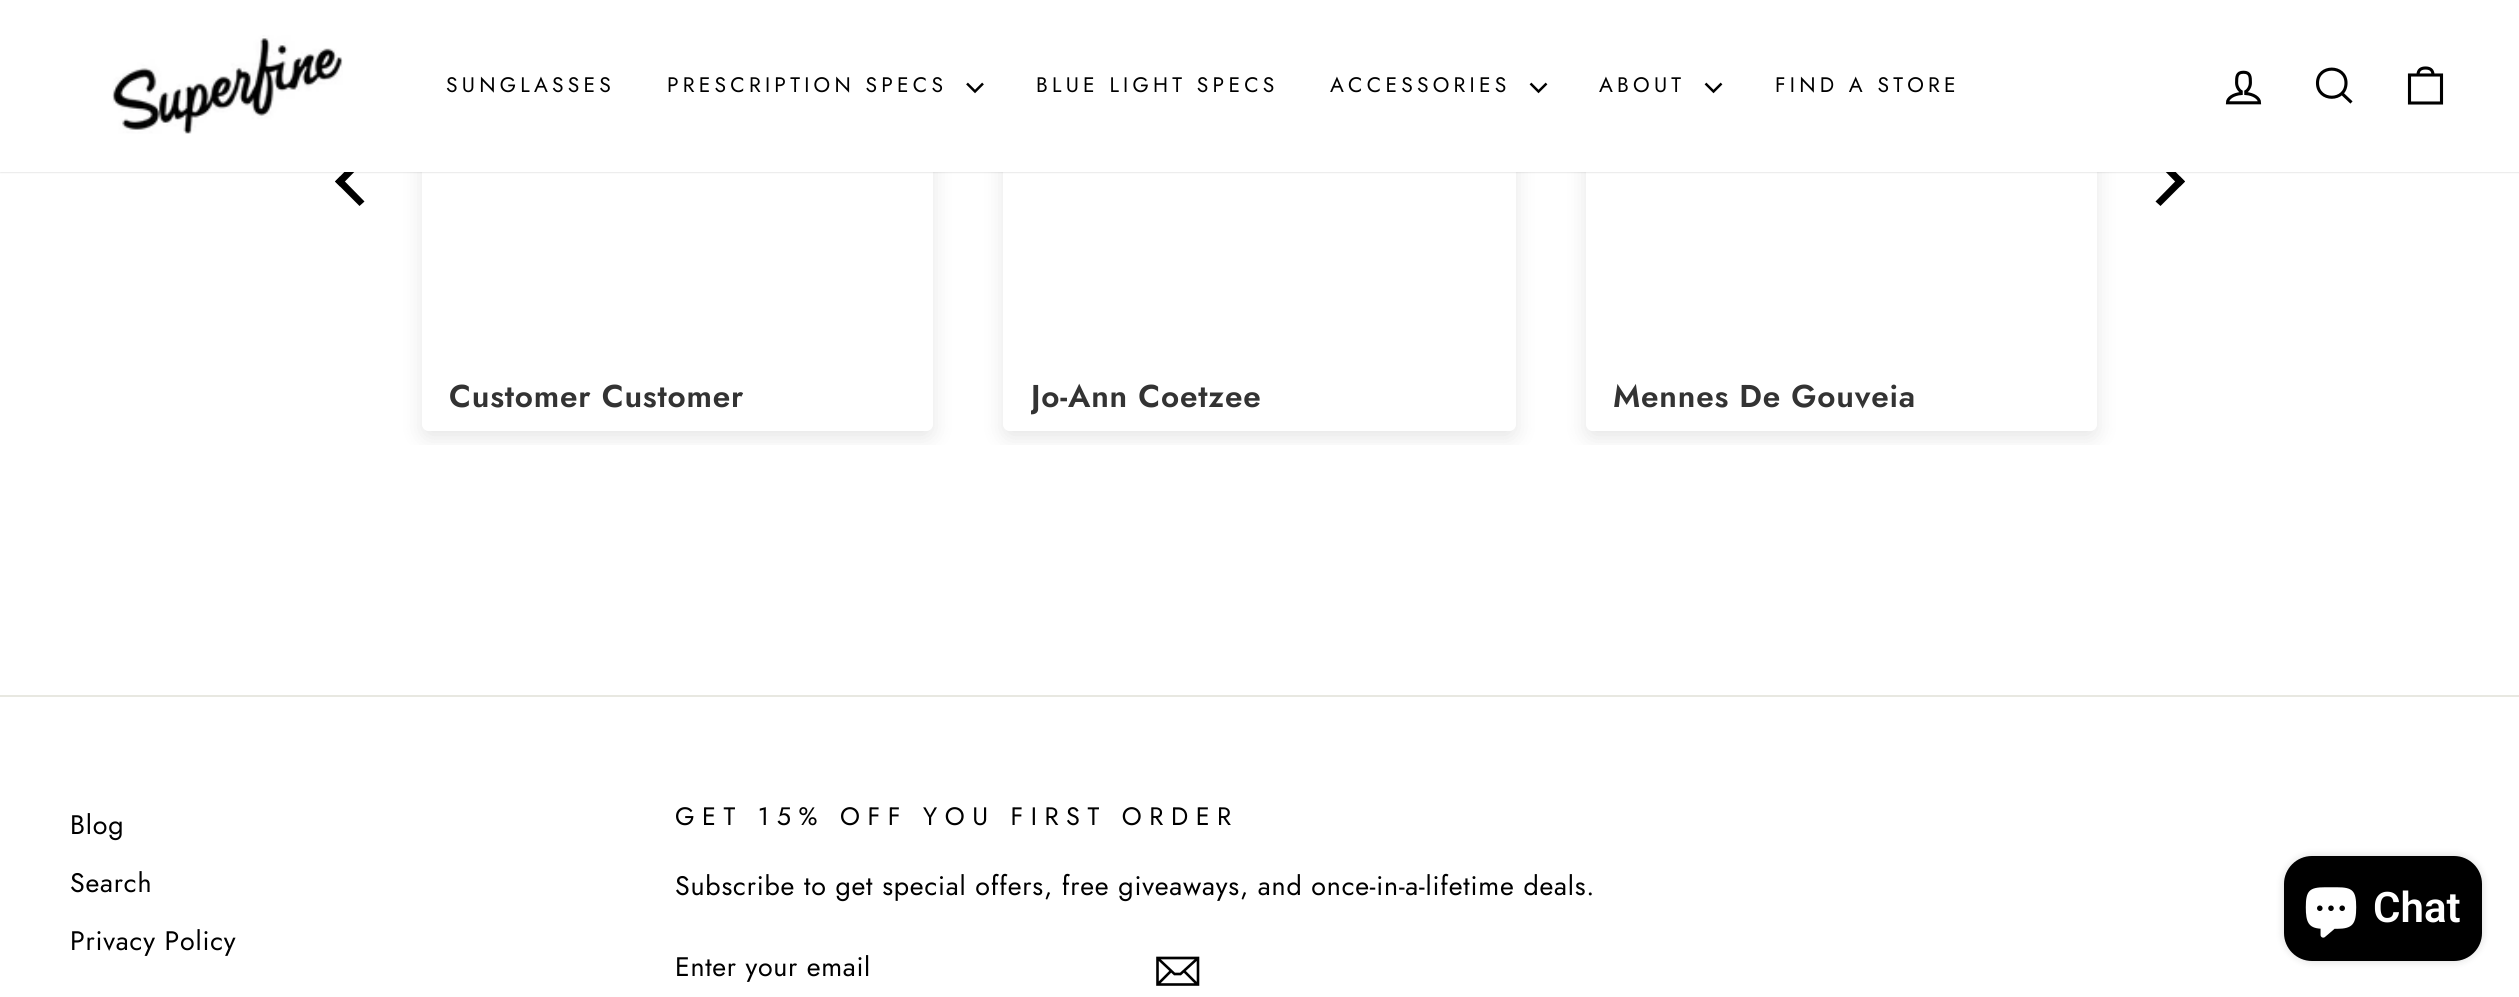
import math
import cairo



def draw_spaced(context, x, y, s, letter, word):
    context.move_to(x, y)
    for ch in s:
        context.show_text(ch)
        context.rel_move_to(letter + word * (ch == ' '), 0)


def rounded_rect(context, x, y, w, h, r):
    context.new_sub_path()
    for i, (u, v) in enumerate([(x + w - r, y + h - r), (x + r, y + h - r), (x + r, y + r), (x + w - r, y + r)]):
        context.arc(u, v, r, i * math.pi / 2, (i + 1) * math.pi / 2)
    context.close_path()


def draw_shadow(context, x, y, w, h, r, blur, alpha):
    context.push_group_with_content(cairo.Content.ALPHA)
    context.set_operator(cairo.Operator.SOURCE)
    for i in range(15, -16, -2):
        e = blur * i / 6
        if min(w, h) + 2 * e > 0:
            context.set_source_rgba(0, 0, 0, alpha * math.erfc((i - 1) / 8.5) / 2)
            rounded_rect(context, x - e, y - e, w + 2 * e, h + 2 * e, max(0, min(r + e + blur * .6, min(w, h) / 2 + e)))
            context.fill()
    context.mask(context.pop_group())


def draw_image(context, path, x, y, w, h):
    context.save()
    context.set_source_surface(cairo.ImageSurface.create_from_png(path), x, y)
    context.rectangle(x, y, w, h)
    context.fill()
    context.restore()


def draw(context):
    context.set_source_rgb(1, 1, 1)
    context.paint()
    context.set_source_rgb(0, 0, 0)
    context.new_path()
    context.move_to(335, 181.5)
    context.line_to(359.5, 156.5)
    context.line_to(364.5, 161.5)
    context.line_to(340, 186.5)
    context.close_path()
    context.fill()
    context.new_path()
    context.move_to(2155.5, 161.5)
    context.line_to(2160.5, 156.5)
    context.line_to(2185, 181.5)
    context.line_to(2180, 186.5)
    context.close_path()
    context.fill()
    context.set_source_rgb(0, 0, 0)
    draw_shadow(context, 0, 0, 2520, 172, 0, 1, 0.2)
    context.save()
    context.rectangle(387, 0, 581, 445)
    context.clip()
    context.set_fill_rule(cairo.FillRule.EVEN_ODD)
    context.new_path()
    context.move_to(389, 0)
    context.line_to(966, 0)
    context.line_to(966, 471)
    context.line_to(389, 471)
    context.close_path()
    context.move_to(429, -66)
    context.line_to(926, -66)
    context.curve_to(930, -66, 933, -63, 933, -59)
    context.line_to(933, 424)
    context.curve_to(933, 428, 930, 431, 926, 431)
    context.line_to(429, 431)
    context.curve_to(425, 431, 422, 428, 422, 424)
    context.line_to(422, -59)
    context.curve_to(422, -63, 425, -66, 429, -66)
    context.close_path()
    context.clip()
    draw_shadow(context, 422, -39, 511, 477, 7, 10.5, 0.1)
    context.restore()
    context.save()
    context.rectangle(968, 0, 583, 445)
    context.clip()
    context.set_fill_rule(cairo.FillRule.EVEN_ODD)
    context.new_path()
    context.move_to(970, 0)
    context.line_to(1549, 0)
    context.line_to(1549, 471)
    context.line_to(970, 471)
    context.close_path()
    context.move_to(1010, -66)
    context.line_to(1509, -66)
    context.curve_to(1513, -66, 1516, -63, 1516, -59)
    context.line_to(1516, 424)
    context.curve_to(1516, 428, 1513, 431, 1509, 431)
    context.line_to(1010, 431)
    context.curve_to(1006, 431, 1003, 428, 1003, 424)
    context.line_to(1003, -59)
    context.curve_to(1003, -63, 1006, -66, 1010, -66)
    context.close_path()
    context.clip()
    draw_shadow(context, 1003, -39, 513, 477, 7, 10.5, 0.1)
    context.restore()
    context.save()
    context.rectangle(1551, 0, 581, 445)
    context.clip()
    context.set_fill_rule(cairo.FillRule.EVEN_ODD)
    context.new_path()
    context.move_to(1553, 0)
    context.line_to(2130, 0)
    context.line_to(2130, 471)
    context.line_to(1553, 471)
    context.close_path()
    context.move_to(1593, -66)
    context.line_to(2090, -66)
    context.curve_to(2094, -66, 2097, -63, 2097, -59)
    context.line_to(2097, 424)
    context.curve_to(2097, 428, 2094, 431, 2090, 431)
    context.line_to(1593, 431)
    context.curve_to(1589, 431, 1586, 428, 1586, 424)
    context.line_to(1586, -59)
    context.curve_to(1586, -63, 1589, -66, 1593, -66)
    context.close_path()
    context.clip()
    draw_shadow(context, 1586, -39, 511, 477, 7, 10.5, 0.1)
    context.restore()
    context.set_source_rgb(1, 1, 1)
    context.rectangle(0, 0, 2519, 172)
    context.fill()
    draw_image(context, "images/1.png", 112, 35, 231, 99)
    context.new_path()
    context.move_to(967, 83.5)
    context.line_to(975, 91.5)
    context.line_to(983, 83.5)
    context.set_source_rgb(0, 0, 0)
    context.set_line_width(2.5)
    context.stroke()
    context.new_path()
    context.move_to(1530.5, 83.5)
    context.line_to(1538.5, 91.5)
    context.line_to(1546.5, 83.5)
    context.stroke()
    context.new_path()
    context.move_to(1705.5, 83.5)
    context.line_to(1713.5, 91.5)
    context.line_to(1721.5, 83.5)
    context.stroke()
    draw_image(context, "images/2.png", 2225, 70, 37, 35)
    context.new_path()
    context.move_to(2346, 83)
    context.curve_to(2346, 102, 2317.5, 102, 2317.5, 83)
    context.curve_to(2317.5, 64.5, 2346, 64.5, 2346, 83)
    context.close_path()
    context.move_to(2351.5, 102.5)
    context.line_to(2342, 93.5)
    context.set_line_width(3.1)
    context.stroke()
    context.new_path()
    context.move_to(2409.5, 75)
    context.line_to(2441.5, 75)
    context.line_to(2441.5, 103)
    context.line_to(2409.5, 103)
    context.close_path()
    context.move_to(2418, 75)
    context.curve_to(2418, 69.5, 2421.5, 68, 2425.5, 68)
    context.curve_to(2429.5, 68, 2433, 69.5, 2433, 75)
    context.stroke()
    context.new_path()
    context.move_to(335, 181.5)
    context.line_to(340, 176.5)
    context.line_to(364.5, 201.5)
    context.line_to(359.5, 206)
    context.close_path()
    context.fill()
    context.new_path()
    context.move_to(2155.5, 201.5)
    context.line_to(2180, 176.5)
    context.line_to(2185, 181.5)
    context.line_to(2160.5, 206)
    context.close_path()
    context.fill()
    context.set_source_rgb(232 / 255, 232 / 255, 225 / 255)
    context.rectangle(0, 695, 2519, 2)
    context.fill()
    context.new_path()
    context.move_to(1198, 984.5)
    context.line_to(1157.5, 984.5)
    context.line_to(1157.5, 958)
    context.line_to(1198, 958)
    context.close_path()
    context.move_to(1157.5, 958)
    context.line_to(1174.5, 974)
    context.line_to(1180.5, 974)
    context.line_to(1198, 958)
    context.move_to(1171, 971)
    context.line_to(1158, 984)
    context.move_to(1197.5, 984.5)
    context.line_to(1184, 971)
    context.set_source_rgb(0, 0, 0)
    context.set_line_width(2.6)
    context.stroke()
    context.set_source_rgb(0, 0, 0)
    draw_shadow(context, 2284, 856, 198, 105, 28, 4.5, 0.15)
    context.set_source_rgb(0, 0, 0)
    rounded_rect(context, 2284, 856, 198, 105, 28)
    context.fill()
    draw_image(context, "images/3.png", 2305, 887, 52, 51)
    context.select_font_face("Jost")
    context.set_font_size(21)
    draw_spaced(context, 446, 92, "SUNGLASSES", 4.25, 0)
    draw_spaced(context, 667, 92, "PRESCRIPTION SPECS", 4.25, 0)
    draw_spaced(context, 1036, 92, "BLUE LIGHT SPECS", 4.25, 0)
    draw_spaced(context, 1330, 92, "ACCESSORIES", 4.25, 0)
    draw_spaced(context, 1599, 92, "ABOUT", 4.25, 0)
    draw_spaced(context, 1775, 92, "FIND A STORE", 4.25, 0)
    context.select_font_face("Jost SemiBold")
    context.set_font_size(31.5)
    context.set_source_rgb(51 / 255, 51 / 255, 51 / 255)
    draw_spaced(context, 449, 407, "Customer Customer", 0.8, 0)
    context.save()
    context.rectangle(1031, 375, 457, 43)
    context.clip()
    draw_spaced(context, 1031, 407, "Jo-Ann Coetzee", 0.8, 0)
    context.restore()
    draw_spaced(context, 1613, 407, "Mennes De Gouveia", 0.8, 0)
    context.select_font_face("Jost")
    context.set_font_size(26.8)
    context.set_source_rgb(0, 0, 0)
    draw_spaced(context, 70, 834, "Blog", 0.8, 0)
    draw_spaced(context, 70, 892, "Search", 0.8, 0)
    draw_spaced(context, 70, 950, "Privacy Policy", 0.8, 0)
    context.set_font_size(25.2)
    draw_spaced(context, 675, 825, "GET 15% OFF YOU FIRST ORDER", 7.55, 0)
    context.set_font_size(26.8)
    draw_spaced(context, 675, 895, "Subscribe to get special offers, free giveaways, and once-in-a-lifetime deals.", 0.8, 0)
    draw_spaced(context, 675, 976, "Enter your email", 0.7, 0)
    context.select_font_face("Roboto SemiBold")
    context.set_font_size(42)
    context.set_source_rgb(1, 1, 1)
    context.move_to(2373, 922)
    context.show_text("Chat")


surface = cairo.ImageSurface(cairo.Format.RGB24, 2519, 997)
context = cairo.Context(surface)
options = cairo.FontOptions()
options.set_hint_metrics(cairo.HintMetrics.OFF)
options.set_hint_style(cairo.HintStyle.NONE)
context.set_font_options(options)
context.set_miter_limit(4)
draw(context)
surface.write_to_png("out.png")
